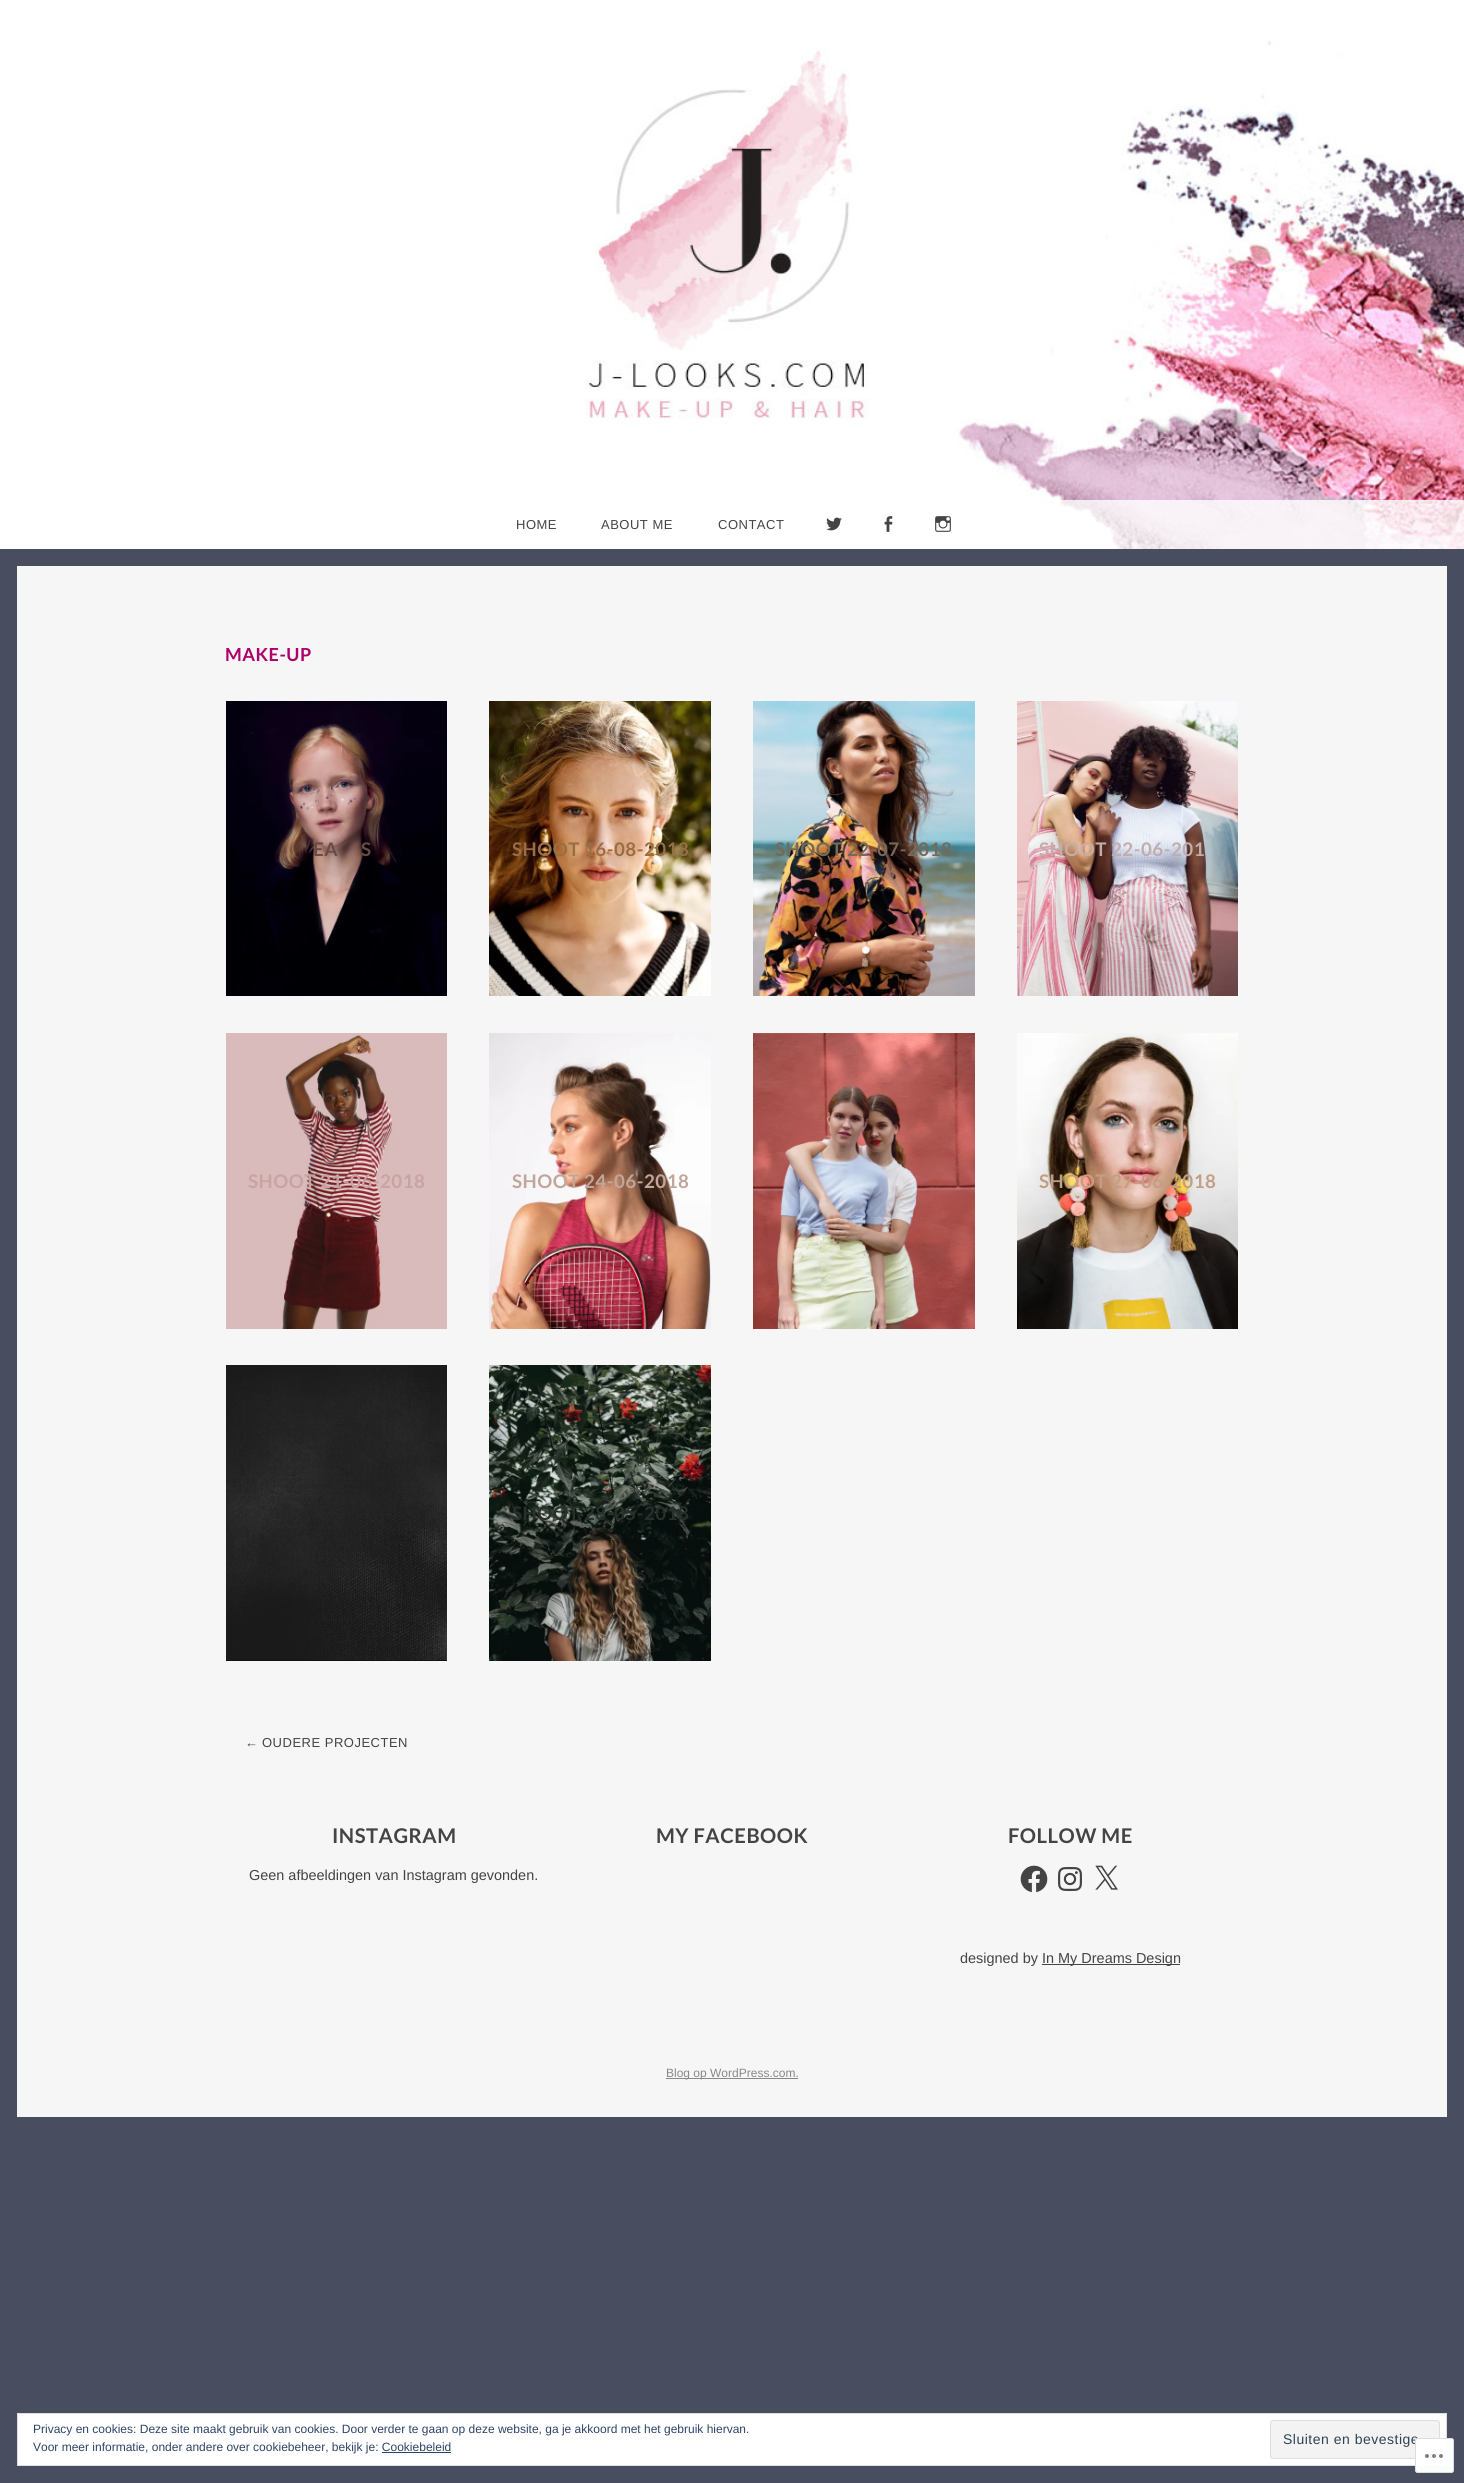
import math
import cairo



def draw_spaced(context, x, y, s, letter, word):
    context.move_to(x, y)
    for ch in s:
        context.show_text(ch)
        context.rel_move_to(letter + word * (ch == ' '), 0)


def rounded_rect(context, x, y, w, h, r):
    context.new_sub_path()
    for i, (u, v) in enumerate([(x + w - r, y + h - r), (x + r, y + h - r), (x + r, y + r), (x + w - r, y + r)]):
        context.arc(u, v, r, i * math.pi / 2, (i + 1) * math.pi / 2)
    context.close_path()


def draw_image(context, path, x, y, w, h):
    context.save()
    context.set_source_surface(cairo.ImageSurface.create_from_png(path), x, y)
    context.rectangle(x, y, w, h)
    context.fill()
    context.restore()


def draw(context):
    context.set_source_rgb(72 / 255, 78 / 255, 96 / 255)
    context.paint()
    draw_image(context, "images/1.png", 0, 0, 1464, 549)
    context.set_source_rgba(1, 1, 1, 0.8)
    context.rectangle(1054, 500, 410, 49)
    context.fill()
    draw_image(context, "images/2.png", 826, 517, 16, 14)
    draw_image(context, "images/3.png", 884, 516, 9, 16)
    draw_image(context, "images/4.png", 935, 516, 16, 16)
    context.set_source_rgb(246 / 255, 246 / 255, 247 / 255)
    context.rectangle(17, 566, 1430, 1551)
    context.fill()
    draw_image(context, "images/5.png", 226, 701, 221, 295)
    draw_image(context, "images/6.png", 489, 701, 222, 295)
    draw_image(context, "images/7.png", 753, 701, 222, 295)
    draw_image(context, "images/8.png", 1017, 701, 221, 295)
    draw_image(context, "images/9.png", 226, 1033, 221, 296)
    draw_image(context, "images/10.png", 489, 1033, 222, 296)
    draw_image(context, "images/11.png", 753, 1033, 222, 296)
    draw_image(context, "images/12.png", 1017, 1033, 221, 296)
    context.set_source_rgb(17 / 255, 17 / 255, 17 / 255)
    context.rectangle(226, 1660, 221, 1)
    context.fill()
    draw_image(context, "images/13.png", 226, 1365, 221, 295)
    draw_image(context, "images/14.png", 489, 1365, 222, 296)
    draw_image(context, "images/15.png", 1020, 1865, 28, 28)
    draw_image(context, "images/16.png", 1058, 1867, 24, 24)
    draw_image(context, "images/17.png", 1095, 1865, 23, 25)
    context.set_source_rgb(68 / 255, 68 / 255, 68 / 255)
    context.rectangle(1042, 1964, 138, 1)
    context.fill()
    context.set_source_rgb(136 / 255, 136 / 255, 136 / 255)
    context.rectangle(666, 2078, 132, 1)
    context.fill()
    context.set_source_rgb(1, 1, 1)
    context.rectangle(17.5, 2413.5, 1429, 52)
    context.fill_preserve()
    context.set_source_rgb(222 / 255, 222 / 255, 222 / 255)
    context.set_line_width(1)
    context.stroke()
    context.set_source_rgb(243 / 255, 243 / 255, 243 / 255)
    rounded_rect(context, 1270.5, 2420.5, 169, 38, 2.5)
    context.fill_preserve()
    context.set_source_rgb(222 / 255, 222 / 255, 222 / 255)
    context.stroke()
    context.set_source_rgb(46 / 255, 68 / 255, 103 / 255)
    context.rectangle(382, 2452, 69, 1)
    context.fill()
    context.select_font_face("Liberation Sans")
    context.set_font_size(13)
    context.set_source_rgb(68 / 255, 68 / 255, 68 / 255)
    draw_spaced(context, 516, 529, "HOME", 0.5, 0)
    draw_spaced(context, 601, 529, "ABOUT ME", 0.5, 0)
    draw_spaced(context, 718, 529, "CONTACT", 0.5, 0)
    context.select_font_face("Lato", cairo.FontSlant.NORMAL, cairo.FontWeight.BOLD)
    context.set_font_size(18)
    context.set_source_rgb(174 / 255, 0, 106 / 255)
    draw_spaced(context, 225, 661, "MAKE-UP", 0.5, 0)
    context.set_font_size(18.75)
    context.set_source_rgb(105 / 255, 74 / 255, 70 / 255)
    draw_spaced(context, 313, 856, "EA", 0.5, 0)
    draw_spaced(context, 361, 856, "S", 0.5, 0)
    context.set_source_rgb(151 / 255, 110 / 255, 72 / 255)
    draw_spaced(context, 512, 856, "SHOOT 16-08-2018", 0.5, 0)
    context.set_source_rgb(115 / 255, 106 / 255, 89 / 255)
    draw_spaced(context, 775, 856, "SHOOT 22-07-2018", 0.5, 0)
    context.set_source_rgb(192 / 255, 173 / 255, 172 / 255)
    draw_spaced(context, 1039, 856, "SHOOT 22-06-201", 0.5, 0)
    context.set_source_rgb(201 / 255, 162 / 255, 163 / 255)
    draw_spaced(context, 248, 1188, "SHOOT 21-06-2018", 0.5, 0)
    context.set_source_rgb(192 / 255, 167 / 255, 156 / 255)
    draw_spaced(context, 512, 1188, "SHOOT 24-06-2018", 0.5, 0)
    context.set_source_rgb(194 / 255, 159 / 255, 132 / 255)
    draw_spaced(context, 1039, 1188, "SHOOT 27-06-2018", 0.5, 0)
    context.set_source_rgb(39 / 255, 48 / 255, 43 / 255)
    draw_spaced(context, 512, 1520, "SHOOT 28-05-2018", 0.5, 0)
    context.select_font_face("Liberation Sans")
    context.set_font_size(13)
    context.set_source_rgb(68 / 255, 68 / 255, 68 / 255)
    draw_spaced(context, 245, 1747, "←", 0.5, 0)
    draw_spaced(context, 262, 1747, "OUDERE PROJECTEN", 0.5, 0)
    context.select_font_face("Lato", cairo.FontSlant.NORMAL, cairo.FontWeight.BOLD)
    context.set_font_size(20.25)
    draw_spaced(context, 332, 1843, "INSTAGRAM", 0.5, 0)
    context.select_font_face("Liberation Sans")
    context.set_font_size(14.45)
    context.move_to(249, 1880)
    context.show_text("Geen afbeeldingen van Instagram gevonden.")
    context.select_font_face("Lato", cairo.FontSlant.NORMAL, cairo.FontWeight.BOLD)
    context.set_font_size(20.25)
    draw_spaced(context, 656, 1843, "MY FACEBOOK", 0.5, 0)
    draw_spaced(context, 1008, 1843, "FOLLOW ME", 0.5, 0)
    context.select_font_face("Liberation Sans")
    context.set_font_size(14.45)
    context.move_to(960, 1963)
    context.show_text("designed by")
    context.move_to(1042, 1963)
    context.show_text("In My Dreams Design")
    context.set_font_size(12)
    context.set_source_rgb(136 / 255, 136 / 255, 136 / 255)
    context.move_to(666, 2077)
    context.show_text("Blog op WordPress.com.")
    context.set_source_rgb(46 / 255, 68 / 255, 103 / 255)
    context.move_to(33, 2433)
    context.show_text("Privacy en cookies: Deze site maakt gebruik van cookies. Door verder te gaan op deze website, ga je akkoord met het gebruik hiervan.")
    context.move_to(33, 2451)
    context.show_text("Voor meer informatie, onder andere over cookiebeheer, bekijk je: Cookiebeleid")
    context.set_font_size(14)
    context.set_source_rgb(46 / 255, 68 / 255, 83 / 255)
    draw_spaced(context, 1283, 2444, "Sluiten en bevestige", 0.5, 0)
    context.set_source_rgba(1, 1, 1, 0.98)
    rounded_rect(context, 1415, 2438, 39, 35, 3)
    context.fill()
    rounded_rect(context, 1415.5, 2438.5, 38, 34, 2.5)
    context.set_source_rgba(220 / 255, 220 / 255, 222 / 255, 0.98)
    context.stroke()
    draw_image(context, "images/18.png", 1425, 2454, 18, 4)


surface = cairo.ImageSurface(cairo.Format.RGB24, 1464, 2483)
context = cairo.Context(surface)
options = cairo.FontOptions()
options.set_hint_metrics(cairo.HintMetrics.OFF)
options.set_hint_style(cairo.HintStyle.NONE)
context.set_font_options(options)
context.set_miter_limit(4)
draw(context)
surface.write_to_png("out.png")
